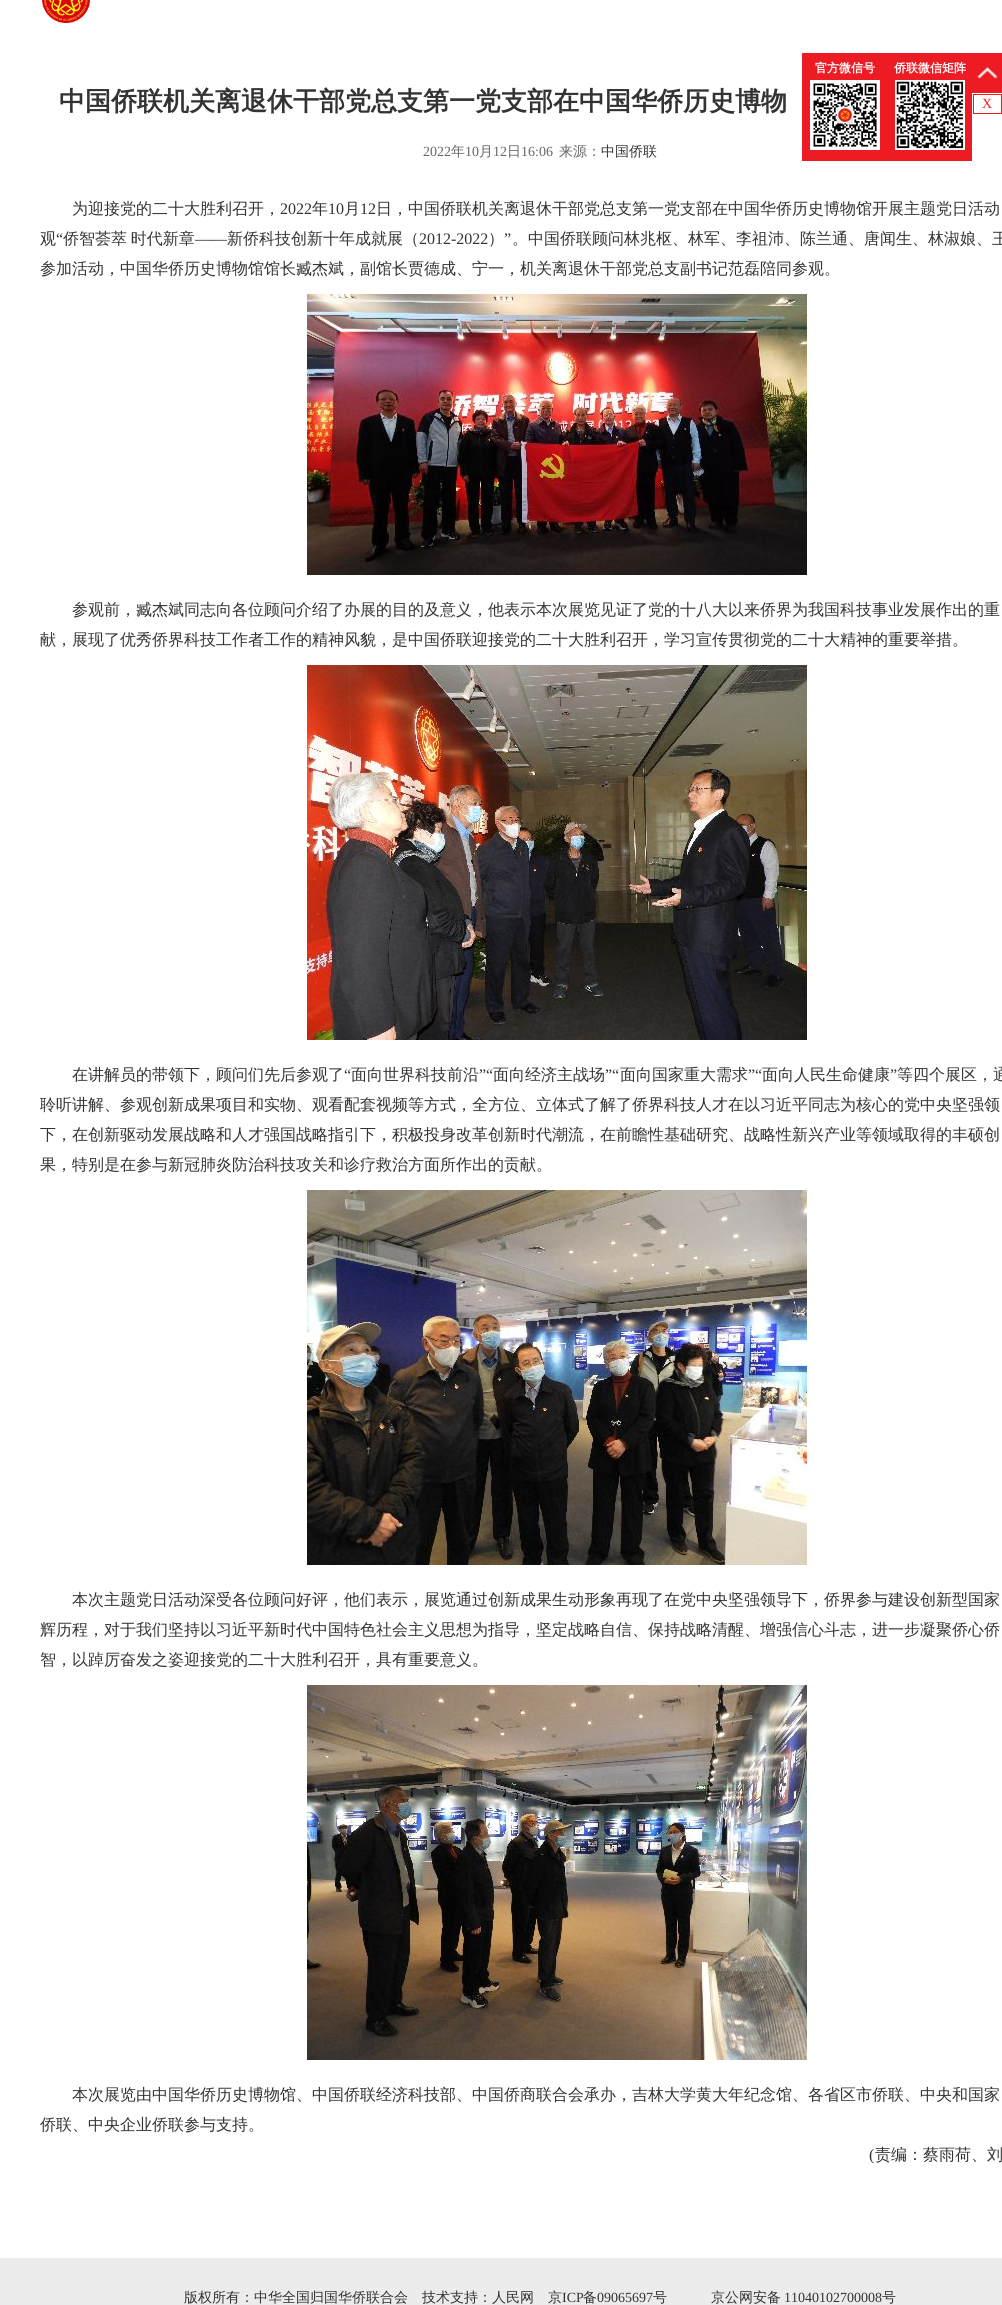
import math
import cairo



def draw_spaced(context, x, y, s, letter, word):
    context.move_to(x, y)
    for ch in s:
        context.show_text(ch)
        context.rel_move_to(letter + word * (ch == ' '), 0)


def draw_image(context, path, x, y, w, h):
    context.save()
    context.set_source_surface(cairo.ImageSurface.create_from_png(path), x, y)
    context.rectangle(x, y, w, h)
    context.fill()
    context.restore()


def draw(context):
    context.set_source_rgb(1, 1, 1)
    context.paint()
    draw_image(context, "images/1.png", 42, 0, 48, 23)
    context.set_source_rgb(237 / 255, 28 / 255, 36 / 255)
    context.rectangle(802, 53, 170, 108)
    context.fill()
    draw_image(context, "images/2.png", 810, 80, 70, 70)
    draw_image(context, "images/3.png", 895, 80, 70, 70)
    context.rectangle(972, 53, 30, 40)
    context.fill()
    draw_image(context, "images/4.png", 977, 67, 22, 13)
    context.rectangle(973.5, 94.5, 28, 19)
    context.set_line_width(1)
    context.stroke()
    draw_image(context, "images/5.png", 307, 294, 500, 281)
    draw_image(context, "images/6.png", 307, 665, 500, 375)
    draw_image(context, "images/7.png", 307, 1190, 500, 375)
    draw_image(context, "images/8.png", 307, 1685, 500, 375)
    context.set_source_rgb(236 / 255, 236 / 255, 236 / 255)
    context.rectangle(0, 2258, 1002, 47)
    context.fill()
    context.select_font_face("WenQuanYi Zen Hei", cairo.FontSlant.NORMAL, cairo.FontWeight.BOLD)
    context.set_font_size(12)
    context.set_source_rgb(1, 1, 1)
    context.move_to(815, 72)
    context.show_text("官方微信号")
    context.move_to(894, 72)
    context.show_text("侨联微信矩阵")
    context.select_font_face("Liberation Serif")
    context.set_font_size(14)
    context.set_source_rgb(237 / 255, 28 / 255, 36 / 255)
    context.move_to(982, 108)
    context.show_text("X")
    context.select_font_face("WenQuanYi Zen Hei", cairo.FontSlant.NORMAL, cairo.FontWeight.BOLD)
    context.set_font_size(26)
    context.set_source_rgb(51 / 255, 51 / 255, 51 / 255)
    context.move_to(59, 110)
    context.show_text("中国侨联机关离退休干部党总支第一党支部在中国华侨历史博物")
    context.select_font_face("Liberation Serif")
    context.set_font_size(14)
    context.set_source_rgb(102 / 255, 102 / 255, 102 / 255)
    context.move_to(423, 156)
    context.show_text("2022")
    context.select_font_face("WenQuanYi Zen Hei Medium")
    context.move_to(451, 156)
    context.show_text("年")
    context.select_font_face("Liberation Serif")
    context.move_to(465, 156)
    context.show_text("10")
    context.select_font_face("WenQuanYi Zen Hei Medium")
    context.move_to(479, 156)
    context.show_text("月")
    context.select_font_face("Liberation Serif")
    context.move_to(493, 156)
    context.show_text("12")
    context.select_font_face("WenQuanYi Zen Hei Medium")
    context.move_to(507, 156)
    context.show_text("日")
    context.select_font_face("Liberation Serif")
    context.move_to(521, 156)
    context.show_text("16:06")
    context.select_font_face("WenQuanYi Zen Hei Medium")
    context.move_to(559, 156)
    context.show_text("来源：")
    context.set_source_rgb(51 / 255, 51 / 255, 51 / 255)
    context.move_to(601, 156)
    context.show_text("中国侨联")
    context.set_font_size(16)
    context.move_to(72, 214)
    context.show_text("为迎接党的二十大胜利召开，")
    context.select_font_face("Liberation Serif")
    context.move_to(280, 214)
    context.show_text("2022")
    context.select_font_face("WenQuanYi Zen Hei Medium")
    context.move_to(312, 214)
    context.show_text("年")
    context.select_font_face("Liberation Serif")
    context.move_to(328, 214)
    context.show_text("10")
    context.select_font_face("WenQuanYi Zen Hei Medium")
    context.move_to(344, 214)
    context.show_text("月")
    context.select_font_face("Liberation Serif")
    context.move_to(360, 214)
    context.show_text("12")
    context.select_font_face("WenQuanYi Zen Hei Medium")
    context.move_to(376, 214)
    context.show_text("日，中国侨联机关离退休干部党总支第一党支部在中国华侨历史博物馆开展主题党日活动")
    context.move_to(40, 244)
    context.show_text("观")
    context.select_font_face("Liberation Serif")
    context.move_to(56, 244)
    context.show_text("“")
    context.select_font_face("WenQuanYi Zen Hei Medium")
    draw_spaced(context, 63, 244, "侨智荟萃 时代新章", 0, -1)
    context.select_font_face("Liberation Serif")
    context.move_to(419, 244)
    context.show_text("2012-2022")
    context.select_font_face("WenQuanYi Zen Hei Medium")
    context.move_to(488, 244)
    context.show_text("）")
    context.select_font_face("Liberation Serif")
    context.move_to(504, 244)
    context.show_text("”")
    context.select_font_face("WenQuanYi Zen Hei Medium")
    context.move_to(512, 244)
    context.show_text("。中国侨联顾问林兆枢、林军、李祖沛、陈兰通、唐闻生、林淑娘、王")
    context.select_font_face("Liberation Serif")
    context.move_to(195, 244)
    context.show_text("——")
    context.select_font_face("WenQuanYi Zen Hei Medium")
    context.move_to(227, 244)
    context.show_text("新侨科技创新十年成就展（")
    context.move_to(40, 274)
    context.show_text("参加活动，中国华侨历史博物馆馆长臧杰斌，副馆长贾德成、宁一，机关离退休干部党总支副书记范磊陪同参观。")
    context.move_to(72, 615)
    context.show_text("参观前，臧杰斌同志向各位顾问介绍了办展的目的及意义，他表示本次展览见证了党的十八大以来侨界为我国科技事业发展作出的重")
    context.move_to(40, 645)
    context.show_text("献，展现了优秀侨界科技工作者工作的精神风貌，是中国侨联迎接党的二十大胜利召开，学习宣传贯彻党的二十大精神的重要举措。")
    context.move_to(72, 1080)
    context.show_text("在讲解员的带领下，顾问们先后参观了")
    context.select_font_face("Liberation Serif")
    context.move_to(344, 1080)
    context.show_text("“")
    context.select_font_face("WenQuanYi Zen Hei Medium")
    context.move_to(351, 1080)
    context.show_text("面向世界科技前沿")
    context.select_font_face("Liberation Serif")
    context.move_to(479, 1080)
    context.show_text("”“")
    context.select_font_face("WenQuanYi Zen Hei Medium")
    context.move_to(493, 1080)
    context.show_text("面向经济主战场")
    context.select_font_face("Liberation Serif")
    context.move_to(605, 1080)
    context.show_text("”“")
    context.select_font_face("WenQuanYi Zen Hei Medium")
    context.move_to(620, 1080)
    context.show_text("面向国家重大需求")
    context.select_font_face("Liberation Serif")
    context.move_to(748, 1080)
    context.show_text("”“")
    context.select_font_face("WenQuanYi Zen Hei Medium")
    context.move_to(762, 1080)
    context.show_text("面向人民生命健康")
    context.select_font_face("Liberation Serif")
    context.move_to(890, 1080)
    context.show_text("”")
    context.select_font_face("WenQuanYi Zen Hei Medium")
    context.move_to(897, 1080)
    context.show_text("等四个展区，通")
    context.move_to(40, 1110)
    context.show_text("聆听讲解、参观创新成果项目和实物、观看配套视频等方式，全方位、立体式了解了侨界科技人才在以习近平同志为核心的党中央坚强领")
    context.move_to(40, 1140)
    context.show_text("下，在创新驱动发展战略和人才强国战略指引下，积极投身改革创新时代潮流，在前瞻性基础研究、战略性新兴产业等领域取得的丰硕创")
    context.move_to(40, 1170)
    context.show_text("果，特别是在参与新冠肺炎防治科技攻关和诊疗救治方面所作出的贡献。")
    context.move_to(72, 1605)
    context.show_text("本次主题党日活动深受各位顾问好评，他们表示，展览通过创新成果生动形象再现了在党中央坚强领导下，侨界参与建设创新型国家")
    context.move_to(40, 1635)
    context.show_text("辉历程，对于我们坚持以习近平新时代中国特色社会主义思想为指导，坚定战略自信、保持战略清醒、增强信心斗志，进一步凝聚侨心侨")
    context.move_to(40, 1665)
    context.show_text("智，以踔厉奋发之姿迎接党的二十大胜利召开，具有重要意义。")
    context.move_to(72, 2100)
    context.show_text("本次展览由中国华侨历史博物馆、中国侨联经济科技部、中国侨商联合会承办，吉林大学黄大年纪念馆、各省区市侨联、中央和国家")
    context.move_to(40, 2130)
    context.show_text("侨联、中央企业侨联参与支持。")
    context.select_font_face("Liberation Serif")
    context.move_to(869, 2160)
    context.show_text("(")
    context.select_font_face("WenQuanYi Zen Hei Medium")
    context.move_to(875, 2160)
    context.show_text("责编：蔡雨荷、刘")
    context.set_font_size(14)
    context.move_to(184, 2302)
    context.show_text("版权所有：中华全国归国华侨联合会　技术支持：人民网　京")
    context.select_font_face("Liberation Serif")
    context.move_to(562, 2302)
    context.show_text("ICP")
    context.select_font_face("WenQuanYi Zen Hei Medium")
    context.move_to(583, 2302)
    context.show_text("备")
    context.select_font_face("Liberation Serif")
    context.move_to(597, 2302)
    context.show_text("09065697")
    context.select_font_face("WenQuanYi Zen Hei Medium")
    context.move_to(653, 2302)
    context.show_text("号")
    context.move_to(711, 2302)
    context.show_text("京公网安备")
    context.select_font_face("Liberation Serif")
    context.move_to(784, 2302)
    context.show_text("11040102700008")
    context.select_font_face("WenQuanYi Zen Hei Medium")
    context.move_to(882, 2302)
    context.show_text("号")


surface = cairo.ImageSurface(cairo.Format.RGB24, 1002, 2305)
context = cairo.Context(surface)
options = cairo.FontOptions()
options.set_hint_metrics(cairo.HintMetrics.OFF)
options.set_hint_style(cairo.HintStyle.NONE)
context.set_font_options(options)
context.set_miter_limit(4)
draw(context)
surface.write_to_png("out.png")
